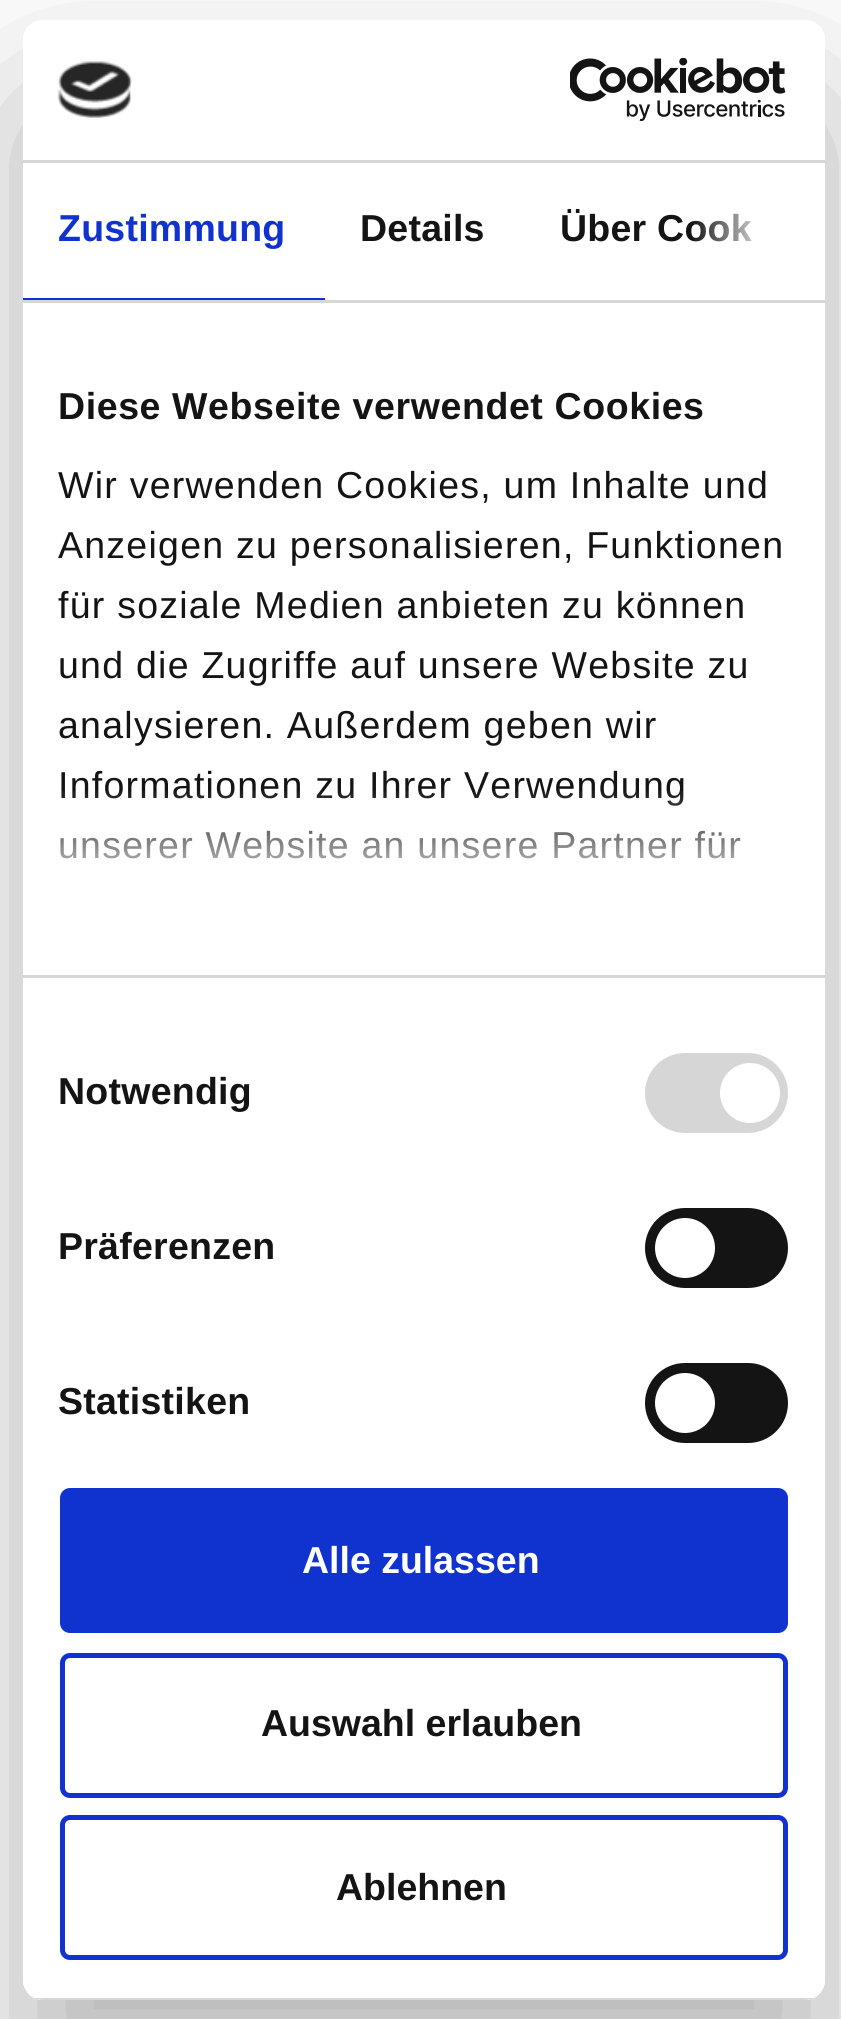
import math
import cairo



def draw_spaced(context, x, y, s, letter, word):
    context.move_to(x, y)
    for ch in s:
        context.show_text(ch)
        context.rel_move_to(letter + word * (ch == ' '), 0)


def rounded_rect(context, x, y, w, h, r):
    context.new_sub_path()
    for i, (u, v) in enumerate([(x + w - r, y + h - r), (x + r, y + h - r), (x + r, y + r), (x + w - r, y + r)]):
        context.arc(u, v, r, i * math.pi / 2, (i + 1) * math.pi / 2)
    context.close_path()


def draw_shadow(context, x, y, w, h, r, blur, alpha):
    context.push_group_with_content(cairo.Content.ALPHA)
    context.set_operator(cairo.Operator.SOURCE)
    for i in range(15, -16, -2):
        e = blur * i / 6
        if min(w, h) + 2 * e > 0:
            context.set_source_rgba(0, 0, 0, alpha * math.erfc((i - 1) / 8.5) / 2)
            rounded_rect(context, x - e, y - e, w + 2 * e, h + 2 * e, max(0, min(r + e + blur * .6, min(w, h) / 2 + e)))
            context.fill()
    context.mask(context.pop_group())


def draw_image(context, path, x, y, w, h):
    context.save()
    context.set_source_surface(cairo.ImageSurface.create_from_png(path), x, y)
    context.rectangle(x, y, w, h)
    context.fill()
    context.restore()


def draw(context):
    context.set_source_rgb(1, 1, 1)
    context.paint()
    context.save()
    context.set_fill_rule(cairo.FillRule.EVEN_ODD)
    context.new_path()
    context.move_to(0, 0)
    context.line_to(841, 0)
    context.line_to(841, 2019)
    context.line_to(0, 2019)
    context.close_path()
    context.move_to(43, 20)
    context.line_to(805, 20)
    context.curve_to(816, 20, 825, 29, 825, 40)
    context.line_to(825, 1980)
    context.curve_to(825, 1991, 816, 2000, 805, 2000)
    context.line_to(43, 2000)
    context.curve_to(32, 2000, 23, 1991, 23, 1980)
    context.line_to(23, 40)
    context.curve_to(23, 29, 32, 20, 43, 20)
    context.close_path()
    context.clip()
    context.set_source_rgb(0, 0, 0)
    draw_shadow(context, 23, 100, 802, 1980, 20, 85, 0.3)
    context.restore()
    context.set_source_rgb(1, 1, 1)
    rounded_rect(context, 23, 20, 802, 1980, 20)
    context.fill()
    context.set_source_rgb(214 / 255, 214 / 255, 214 / 255)
    context.rectangle(23, 160, 802, 3)
    context.fill()
    draw_image(context, "images/1.png", 57, 61, 75, 57)
    draw_image(context, "images/2.png", 570, 58, 216, 63)
    context.rectangle(23, 300, 802, 3)
    context.fill()
    context.set_source_rgb(16 / 255, 50 / 255, 207 / 255)
    context.rectangle(23, 298, 302, 2)
    context.fill()
    context.set_source_rgb(214 / 255, 214 / 255, 214 / 255)
    context.rectangle(23, 975, 802, 3)
    context.fill()
    rounded_rect(context, 645, 1053, 143, 80, 40)
    context.fill()
    context.set_source_rgb(1, 1, 1)
    context.arc(750, 1093, 30, 0, 2 * math.pi)
    context.fill()
    context.set_source_rgb(20 / 255, 20 / 255, 20 / 255)
    rounded_rect(context, 645, 1208, 143, 80, 40)
    context.fill()
    context.set_source_rgb(1, 1, 1)
    context.arc(685, 1248, 30, 0, 2 * math.pi)
    context.fill()
    context.set_source_rgb(20 / 255, 20 / 255, 20 / 255)
    rounded_rect(context, 645, 1363, 143, 80, 40)
    context.fill()
    context.set_source_rgb(1, 1, 1)
    context.arc(685, 1403, 30, 0, 2 * math.pi)
    context.fill()
    context.save()
    rounded_rect(context, 23, 20, 802, 1980, 20)
    context.clip()
    context.set_source_rgb(214 / 255, 214 / 255, 214 / 255)
    context.rectangle(34, 1998, 780, 2)
    context.fill()
    context.restore()
    context.set_source_rgb(16 / 255, 50 / 255, 207 / 255)
    rounded_rect(context, 62.5, 1490.5, 723, 140, 7.5)
    context.fill_preserve()
    context.set_line_width(5)
    context.stroke()
    rounded_rect(context, 62.5, 1655.5, 723, 140, 7.5)
    context.stroke()
    rounded_rect(context, 62.5, 1817.5, 723, 140, 7.5)
    context.stroke()
    context.select_font_face("Liberation Sans", cairo.FontSlant.NORMAL, cairo.FontWeight.BOLD)
    context.set_font_size(37.5)
    draw_spaced(context, 58, 241, "Zustimmung", 0.25, 0)
    context.set_source_rgb(20 / 255, 20 / 255, 20 / 255)
    draw_spaced(context, 360, 241, "Details", 0.25, 0)
    draw_spaced(context, 560, 241, "Über Cook", 0.25, 0)
    gradient = cairo.LinearGradient(824, 231, 691, 231)
    gradient.add_color_stop_rgba(0, 1, 1, 1, 1)
    gradient.add_color_stop_rgba(0.5, 1, 1, 1, 0.8)
    gradient.add_color_stop_rgba(1, 1, 1, 1, 0)
    context.set_source(gradient)
    context.rectangle(693, 213, 59, 29)
    context.fill()
    context.set_source_rgb(20 / 255, 20 / 255, 20 / 255)
    draw_spaced(context, 58, 419, "Diese Webseite verwendet Cookies", 0.6, 0)
    context.select_font_face("Liberation Sans")
    draw_spaced(context, 58, 498, "Wir verwenden Cookies, um Inhalte und", 1.25, 0)
    draw_spaced(context, 58, 558, "Anzeigen zu personalisieren, Funktionen", 1.25, 0)
    draw_spaced(context, 58, 618, "für soziale Medien anbieten zu können", 1.25, 0)
    draw_spaced(context, 58, 678, "und die Zugriffe auf unsere Website zu", 1.25, 0)
    draw_spaced(context, 58, 738, "analysieren. Außerdem geben wir", 1.25, 0)
    draw_spaced(context, 58, 798, "Informationen zu Ihrer Verwendung", 1.25, 0)
    draw_spaced(context, 58, 858, "unserer Website an unsere Partner für", 1.25, 0)
    gradient = cairo.LinearGradient(406, 975, 406, 788)
    gradient.add_color_stop_rgba(0, 1, 1, 1, 1)
    gradient.add_color_stop_rgba(0.5, 1, 1, 1, 0.8)
    gradient.add_color_stop_rgba(1, 1, 1, 1, 0)
    context.set_source(gradient)
    context.rectangle(59, 791, 681, 68)
    context.fill()
    context.select_font_face("Liberation Sans", cairo.FontSlant.NORMAL, cairo.FontWeight.BOLD)
    context.set_source_rgb(20 / 255, 20 / 255, 20 / 255)
    draw_spaced(context, 58, 1104, "Notwendig", 0.25, 0)
    draw_spaced(context, 58, 1259, "Präferenzen", 0.25, 0)
    draw_spaced(context, 58, 1414, "Statistiken", 0.25, 0)
    context.set_source_rgb(1, 1, 1)
    context.move_to(302, 1573)
    context.show_text("Alle zulassen")
    context.set_source_rgb(20 / 255, 20 / 255, 20 / 255)
    context.move_to(261, 1736)
    context.show_text("Auswahl erlauben")
    context.move_to(336, 1900)
    context.show_text("Ablehnen")


surface = cairo.ImageSurface(cairo.Format.RGB24, 841, 2019)
context = cairo.Context(surface)
options = cairo.FontOptions()
options.set_hint_metrics(cairo.HintMetrics.OFF)
options.set_hint_style(cairo.HintStyle.NONE)
context.set_font_options(options)
context.set_miter_limit(4)
draw(context)
surface.write_to_png("out.png")
